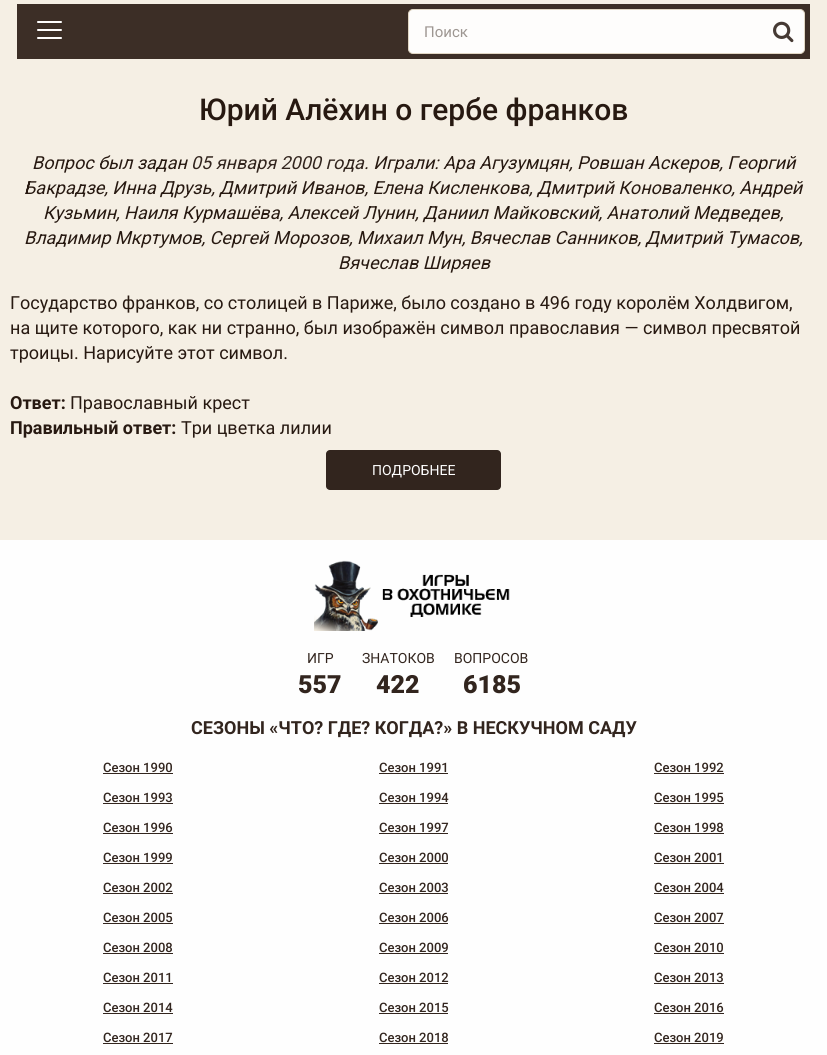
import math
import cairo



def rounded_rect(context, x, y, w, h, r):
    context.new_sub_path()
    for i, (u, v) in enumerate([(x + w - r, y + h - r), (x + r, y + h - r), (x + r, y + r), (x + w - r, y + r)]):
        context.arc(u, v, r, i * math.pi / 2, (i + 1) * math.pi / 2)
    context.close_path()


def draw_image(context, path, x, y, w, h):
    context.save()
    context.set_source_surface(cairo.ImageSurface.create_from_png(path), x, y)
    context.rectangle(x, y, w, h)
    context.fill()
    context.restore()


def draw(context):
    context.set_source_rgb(245 / 255, 239 / 255, 228 / 255)
    context.paint()
    context.set_source_rgb(60 / 255, 46 / 255, 38 / 255)
    context.rectangle(17, 4, 793, 55)
    context.fill()
    context.set_source_rgb(254 / 255, 253 / 255, 252 / 255)
    rounded_rect(context, 37, 37, 25, 2, 1)
    context.fill()
    rounded_rect(context, 37, 21, 25, 2, 1)
    context.fill()
    rounded_rect(context, 37, 29, 25, 2, 1)
    context.fill()
    rounded_rect(context, 408.5, 9.5, 396, 44, 4.5)
    context.fill_preserve()
    context.set_source_rgb(225 / 255, 215 / 255, 196 / 255)
    context.set_line_width(1)
    context.stroke()
    draw_image(context, "images/1.png", 773, 21, 21, 22)
    context.set_source_rgb(50 / 255, 37 / 255, 30 / 255)
    rounded_rect(context, 326, 450, 175, 40, 4)
    context.fill()
    context.set_source_rgb(254 / 255, 254 / 255, 254 / 255)
    context.rectangle(0, 540, 827, 515)
    context.fill()
    draw_image(context, "images/2.png", 314, 560, 196, 71)
    context.set_source_rgb(50 / 255, 37 / 255, 30 / 255)
    context.rectangle(103, 773, 70, 1)
    context.fill()
    context.rectangle(379, 773, 69, 1)
    context.fill()
    context.rectangle(654, 773, 70, 1)
    context.fill()
    context.rectangle(103, 803, 70, 1)
    context.fill()
    context.rectangle(379, 803, 69, 1)
    context.fill()
    context.rectangle(654, 803, 70, 1)
    context.fill()
    context.rectangle(103, 833, 70, 1)
    context.fill()
    context.rectangle(379, 833, 69, 1)
    context.fill()
    context.rectangle(654, 833, 70, 1)
    context.fill()
    context.rectangle(103, 863, 70, 1)
    context.fill()
    context.rectangle(379, 863, 69, 1)
    context.fill()
    context.rectangle(654, 863, 70, 1)
    context.fill()
    context.rectangle(103, 893, 70, 1)
    context.fill()
    context.rectangle(379, 893, 69, 1)
    context.fill()
    context.rectangle(654, 893, 70, 1)
    context.fill()
    context.rectangle(103, 923, 70, 1)
    context.fill()
    context.rectangle(379, 923, 69, 1)
    context.fill()
    context.rectangle(654, 923, 70, 1)
    context.fill()
    context.rectangle(103, 953, 70, 1)
    context.fill()
    context.rectangle(379, 953, 69, 1)
    context.fill()
    context.rectangle(654, 953, 70, 1)
    context.fill()
    context.rectangle(103, 983, 70, 1)
    context.fill()
    context.rectangle(379, 983, 69, 1)
    context.fill()
    context.rectangle(654, 983, 70, 1)
    context.fill()
    context.rectangle(103, 1013, 70, 1)
    context.fill()
    context.rectangle(379, 1013, 69, 1)
    context.fill()
    context.rectangle(654, 1013, 70, 1)
    context.fill()
    context.rectangle(103, 1043, 70, 1)
    context.fill()
    context.rectangle(379, 1043, 69, 1)
    context.fill()
    context.rectangle(654, 1043, 70, 1)
    context.fill()
    context.select_font_face("Roboto")
    context.set_font_size(15)
    context.set_source_rgb(157 / 255, 150 / 255, 145 / 255)
    context.move_to(424, 37)
    context.show_text("Поиск")
    context.select_font_face("Roboto Medium")
    context.set_font_size(30)
    context.set_source_rgb(39 / 255, 25 / 255, 17 / 255)
    context.move_to(199, 120)
    context.show_text("Юрий Алёхин о гербе франков")
    context.select_font_face("Roboto", cairo.FontSlant.ITALIC)
    context.set_font_size(18)
    context.move_to(32, 169)
    context.show_text("Вопрос был задан")
    context.set_source_rgb(50 / 255, 37 / 255, 30 / 255)
    context.move_to(191, 169)
    context.show_text("05 января 2000 года")
    context.set_source_rgb(39 / 255, 25 / 255, 17 / 255)
    context.move_to(364, 169)
    context.show_text(". Играли: Ара Агузумцян, Ровшан Аскеров, Георгий")
    context.move_to(24, 194)
    context.show_text("Бакрадзе, Инна Друзь, Дмитрий Иванов, Елена Кисленкова, Дмитрий Коноваленко, Андрей")
    context.move_to(43, 219)
    context.show_text("Кузьмин, Наиля Курмашёва, Алексей Лунин, Даниил Майковский, Анатолий Медведев,")
    context.move_to(24, 244)
    context.show_text("Владимир Мкртумов, Сергей Морозов, Михаил Мун, Вячеслав Санников, Дмитрий Тумасов,")
    context.move_to(338, 269)
    context.show_text("Вячеслав Ширяев")
    context.select_font_face("Roboto")
    context.move_to(10, 309)
    context.show_text("Государство франков, со столицей в Париже, было создано в 496 году королём Холдвигом,")
    context.move_to(10, 334)
    context.show_text("на щите которого, как ни странно, был изображён символ православия — символ пресвятой")
    context.move_to(10, 359)
    context.show_text("троицы. Нарисуйте этот символ.")
    context.select_font_face("Roboto", cairo.FontSlant.NORMAL, cairo.FontWeight.BOLD)
    context.move_to(10, 409)
    context.show_text("Ответ:")
    context.select_font_face("Roboto")
    context.move_to(70, 409)
    context.show_text("Православный крест")
    context.select_font_face("Roboto", cairo.FontSlant.NORMAL, cairo.FontWeight.BOLD)
    context.move_to(10, 434)
    context.show_text("Правильный ответ:")
    context.select_font_face("Roboto")
    context.move_to(181, 434)
    context.show_text("Три цветка лилии")
    context.set_font_size(14)
    context.set_source_rgb(1, 1, 1)
    context.move_to(372, 475)
    context.show_text("ПОДРОБНЕЕ")
    context.set_source_rgb(50 / 255, 37 / 255, 30 / 255)
    context.move_to(307, 663)
    context.show_text("ИГР")
    context.select_font_face("Roboto Black")
    context.set_font_size(25)
    context.move_to(298, 693)
    context.show_text("557")
    context.select_font_face("Roboto")
    context.set_font_size(14)
    context.move_to(362, 663)
    context.show_text("ЗНАТОКОВ")
    context.select_font_face("Roboto Black")
    context.set_font_size(25)
    context.move_to(376, 693)
    context.show_text("422")
    context.select_font_face("Roboto")
    context.set_font_size(14)
    context.move_to(454, 663)
    context.show_text("ВОПРОСОВ")
    context.select_font_face("Roboto Black")
    context.set_font_size(25)
    context.move_to(463, 693)
    context.show_text("6185")
    context.select_font_face("Roboto", cairo.FontSlant.NORMAL, cairo.FontWeight.BOLD)
    context.set_font_size(18)
    context.move_to(191, 734)
    context.show_text("СЕЗОНЫ «ЧТО? ГДЕ? КОГДА?» В НЕСКУЧНОМ САДУ")
    context.select_font_face("Roboto Medium")
    context.set_font_size(13)
    context.move_to(103, 772)
    context.show_text("Сезон 1990")
    context.move_to(379, 772)
    context.show_text("Сезон 1991")
    context.move_to(654, 772)
    context.show_text("Сезон 1992")
    context.move_to(103, 802)
    context.show_text("Сезон 1993")
    context.move_to(379, 802)
    context.show_text("Сезон 1994")
    context.move_to(654, 802)
    context.show_text("Сезон 1995")
    context.move_to(103, 832)
    context.show_text("Сезон 1996")
    context.move_to(379, 832)
    context.show_text("Сезон 1997")
    context.move_to(654, 832)
    context.show_text("Сезон 1998")
    context.move_to(103, 862)
    context.show_text("Сезон 1999")
    context.move_to(379, 862)
    context.show_text("Сезон 2000")
    context.move_to(654, 862)
    context.show_text("Сезон 2001")
    context.move_to(103, 892)
    context.show_text("Сезон 2002")
    context.move_to(379, 892)
    context.show_text("Сезон 2003")
    context.move_to(654, 892)
    context.show_text("Сезон 2004")
    context.move_to(103, 922)
    context.show_text("Сезон 2005")
    context.move_to(379, 922)
    context.show_text("Сезон 2006")
    context.move_to(654, 922)
    context.show_text("Сезон 2007")
    context.move_to(103, 952)
    context.show_text("Сезон 2008")
    context.move_to(379, 952)
    context.show_text("Сезон 2009")
    context.move_to(654, 952)
    context.show_text("Сезон 2010")
    context.move_to(103, 982)
    context.show_text("Сезон 2011")
    context.move_to(379, 982)
    context.show_text("Сезон 2012")
    context.move_to(654, 982)
    context.show_text("Сезон 2013")
    context.move_to(103, 1012)
    context.show_text("Сезон 2014")
    context.move_to(379, 1012)
    context.show_text("Сезон 2015")
    context.move_to(654, 1012)
    context.show_text("Сезон 2016")
    context.move_to(103, 1042)
    context.show_text("Сезон 2017")
    context.move_to(379, 1042)
    context.show_text("Сезон 2018")
    context.move_to(654, 1042)
    context.show_text("Сезон 2019")


surface = cairo.ImageSurface(cairo.Format.RGB24, 827, 1055)
context = cairo.Context(surface)
options = cairo.FontOptions()
options.set_hint_metrics(cairo.HintMetrics.OFF)
options.set_hint_style(cairo.HintStyle.NONE)
context.set_font_options(options)
context.set_miter_limit(4)
draw(context)
surface.write_to_png("out.png")
